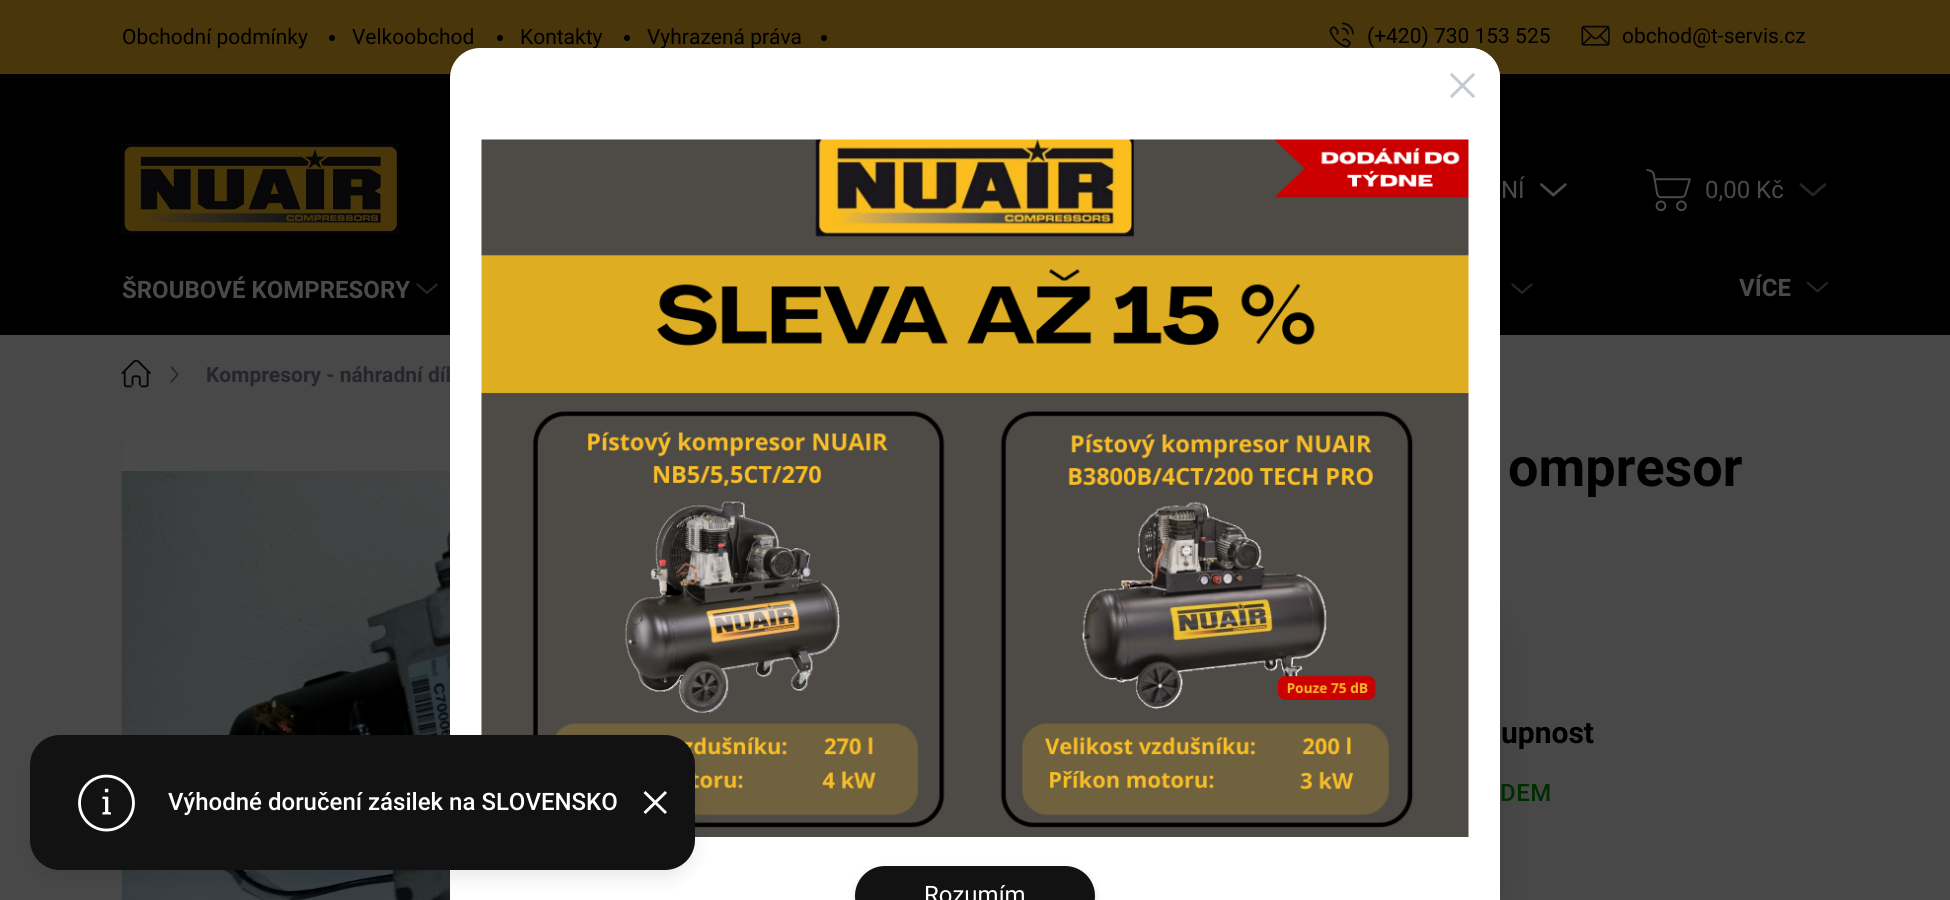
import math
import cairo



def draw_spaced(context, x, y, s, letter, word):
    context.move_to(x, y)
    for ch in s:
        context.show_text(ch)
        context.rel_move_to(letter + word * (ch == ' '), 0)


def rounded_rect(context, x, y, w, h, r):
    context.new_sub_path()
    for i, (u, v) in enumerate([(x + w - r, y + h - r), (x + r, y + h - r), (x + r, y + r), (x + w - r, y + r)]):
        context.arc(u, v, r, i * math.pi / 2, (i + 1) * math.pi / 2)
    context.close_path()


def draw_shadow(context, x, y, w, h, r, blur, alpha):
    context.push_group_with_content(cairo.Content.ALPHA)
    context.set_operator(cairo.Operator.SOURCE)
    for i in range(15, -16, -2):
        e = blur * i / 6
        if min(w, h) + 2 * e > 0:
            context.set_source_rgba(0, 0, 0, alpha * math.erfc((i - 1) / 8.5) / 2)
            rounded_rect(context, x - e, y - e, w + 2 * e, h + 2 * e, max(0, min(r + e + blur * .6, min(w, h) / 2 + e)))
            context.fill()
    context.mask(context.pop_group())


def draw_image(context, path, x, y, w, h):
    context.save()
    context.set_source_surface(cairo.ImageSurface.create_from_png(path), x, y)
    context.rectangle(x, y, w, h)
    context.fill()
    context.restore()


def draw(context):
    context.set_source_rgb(72 / 255, 72 / 255, 72 / 255)
    context.paint()
    context.set_source_rgb(73 / 255, 54 / 255, 10 / 255)
    context.rectangle(0, 0, 1950, 74)
    context.fill()
    context.set_source_rgb(0, 0, 0)
    context.arc(332, 38, 3, 0, 2 * math.pi)
    context.fill()
    context.arc(500, 38, 3, 0, 2 * math.pi)
    context.fill()
    context.arc(627, 38, 3, 0, 2 * math.pi)
    context.fill()
    context.arc(824, 38, 3, 0, 2 * math.pi)
    context.fill()
    draw_image(context, "images/1.png", 1329, 22, 25, 26)
    draw_image(context, "images/2.png", 1581, 25, 29, 21)
    context.rectangle(0, 74, 1950, 261)
    context.fill()
    draw_image(context, "images/3.png", 121, 144, 278, 90)
    draw_image(context, "images/4.png", 1540, 183, 27, 14)
    draw_image(context, "images/5.png", 1646, 169, 45, 43)
    draw_image(context, "images/6.png", 1799, 183, 28, 14)
    draw_image(context, "images/7.png", 416, 283, 22, 11)
    draw_image(context, "images/7.png", 1511, 283, 22, 11)
    draw_image(context, "images/8.png", 1806, 281, 23, 12)
    draw_image(context, "images/9.png", 121, 359, 30, 29)
    draw_image(context, "images/10.png", 170, 366, 9, 17)
    draw_image(context, "images/11.png", 121, 440, 329, 460)
    context.set_source_rgb(8 / 255, 7 / 255, 17 / 255)
    draw_shadow(context, 473, 630, 1005, 270, 12, 22.5, 0.5)
    context.select_font_face("Roboto")
    context.set_font_size(21)
    context.set_source_rgb(0, 0, 0)
    context.move_to(122, 44)
    context.show_text("Obchodní podmínky")
    context.move_to(352, 44)
    context.show_text("Velkoobchod")
    context.move_to(520, 44)
    context.show_text("Kontakty")
    context.move_to(647, 44)
    context.show_text("Vyhrazená práva")
    context.move_to(1367, 43)
    context.show_text("(+420) 730 153 525")
    context.move_to(1622, 43)
    context.show_text("obchod@t-servis.cz")
    context.set_font_size(24)
    context.set_source_rgb(74 / 255, 74 / 255, 74 / 255)
    context.move_to(1501, 198)
    context.show_text("NÍ")
    context.move_to(1705, 198)
    context.show_text("0,00 Kč")
    context.select_font_face("Roboto", cairo.FontSlant.NORMAL, cairo.FontWeight.BOLD)
    context.move_to(122, 298)
    context.show_text("ŠROUBOVÉ KOMPRESORY")
    context.move_to(1739, 296)
    context.show_text("VÍCE")
    context.set_font_size(21)
    context.set_source_rgb(37 / 255, 38 / 255, 43 / 255)
    context.move_to(206, 382)
    context.show_text("Kompresory - náhradní díl")
    context.set_font_size(54)
    context.set_source_rgb(0, 0, 0)
    context.move_to(1508, 486)
    context.show_text("ompresor")
    context.set_font_size(30)
    context.move_to(1501, 743)
    context.show_text("upnost")
    context.select_font_face("Roboto Medium")
    context.set_font_size(24)
    context.set_source_rgb(0, 44 / 255, 0)
    draw_spaced(context, 1500, 801, "DEM", 0.5, 0)
    context.set_source_rgb(1, 1, 1)
    rounded_rect(context, 450, 48, 1050, 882, 30)
    context.fill()
    rounded_rect(context, 1425, 48, 75, 75, 30)
    context.fill()
    draw_image(context, "images/13.png", 1450, 73, 25, 25)
    draw_image(context, "images/14.png", 481, 139, 988, 698)
    context.set_source_rgb(0, 0, 0)
    draw_shadow(context, 30, 744, 665, 135, 30, 9, 0.08)
    context.set_source_rgb(18 / 255, 18 / 255, 18 / 255)
    rounded_rect(context, 30, 735, 665, 135, 30)
    context.fill()
    context.set_source_rgb(1, 1, 1)
    context.new_path()
    context.move_to(665, 791)
    context.line_to(667, 793)
    context.line_to(645.5, 814)
    context.line_to(643.5, 812)
    context.close_path()
    context.fill()
    context.new_path()
    context.move_to(645.5, 791)
    context.line_to(667, 812)
    context.line_to(665, 814)
    context.line_to(643.5, 793)
    context.close_path()
    context.fill()
    draw_image(context, "images/12.png", 78, 774, 57, 58)
    context.move_to(168, 810)
    context.show_text("Výhodné doručení zásilek na SLOVENSKO")
    context.set_source_rgb(0, 0, 0)
    draw_shadow(context, 855, 870, 240, 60, 30, 4.5, 0.12)
    context.set_source_rgb(18 / 255, 18 / 255, 18 / 255)
    rounded_rect(context, 856, 867, 238, 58, 29)
    context.fill_preserve()
    context.stroke()
    context.select_font_face("Roboto")
    context.set_source_rgb(1, 1, 1)
    context.move_to(924, 903)
    context.show_text("Rozumím")


surface = cairo.ImageSurface(cairo.Format.RGB24, 1950, 900)
context = cairo.Context(surface)
options = cairo.FontOptions()
options.set_hint_metrics(cairo.HintMetrics.OFF)
options.set_hint_style(cairo.HintStyle.NONE)
context.set_font_options(options)
context.set_miter_limit(4)
draw(context)
surface.write_to_png("out.png")
